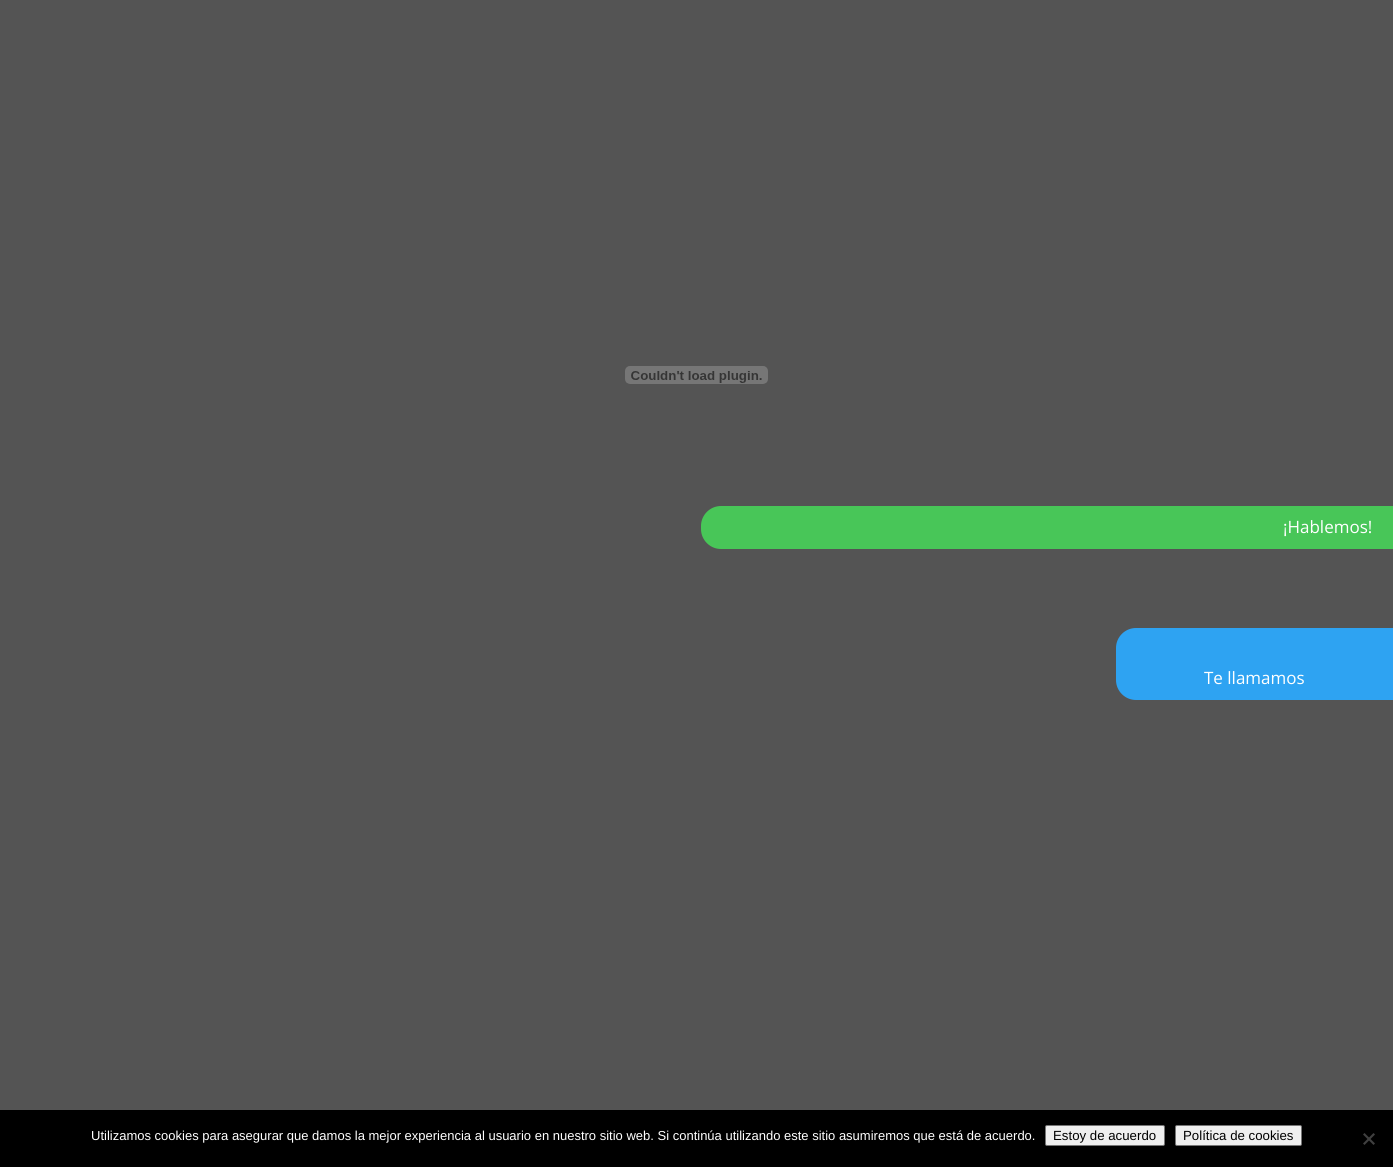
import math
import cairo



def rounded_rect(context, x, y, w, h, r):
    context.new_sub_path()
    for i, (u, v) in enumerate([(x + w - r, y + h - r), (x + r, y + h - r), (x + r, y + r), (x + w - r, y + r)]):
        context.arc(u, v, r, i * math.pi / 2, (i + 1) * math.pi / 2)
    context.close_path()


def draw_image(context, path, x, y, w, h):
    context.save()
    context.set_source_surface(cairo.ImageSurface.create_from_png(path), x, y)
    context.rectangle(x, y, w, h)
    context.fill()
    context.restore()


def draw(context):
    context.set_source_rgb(84 / 255, 84 / 255, 84 / 255)
    context.paint()
    draw_image(context, "images/1.png", 625, 366, 143, 18)
    context.set_source_rgb(72 / 255, 198 / 255, 88 / 255)
    context.new_path()
    context.move_to(721, 506)
    context.line_to(1393, 506)
    context.line_to(1393, 549)
    context.line_to(721, 549)
    context.curve_to(710, 549, 701, 540, 701, 529)
    context.line_to(701, 526)
    context.curve_to(701, 515, 710, 506, 721, 506)
    context.close_path()
    context.fill()
    context.set_source_rgb(46 / 255, 163 / 255, 242 / 255)
    context.new_path()
    context.move_to(1136, 628)
    context.line_to(1393, 628)
    context.line_to(1393, 700)
    context.line_to(1136, 700)
    context.curve_to(1125, 700, 1116, 691, 1116, 680)
    context.line_to(1116, 648)
    context.curve_to(1116, 637, 1125, 628, 1136, 628)
    context.close_path()
    context.fill()
    context.set_source_rgb(0, 0, 0)
    context.rectangle(0, 1110, 1393, 57)
    context.fill()
    context.set_source_rgb(239 / 255, 239 / 255, 239 / 255)
    rounded_rect(context, 1045.5, 1125.5, 119, 20, 1.5)
    context.fill_preserve()
    context.set_source_rgb(118 / 255, 118 / 255, 118 / 255)
    context.set_line_width(1)
    context.stroke()
    context.set_source_rgb(239 / 255, 239 / 255, 239 / 255)
    rounded_rect(context, 1175.5, 1125.5, 126, 20, 1.5)
    context.fill_preserve()
    context.set_source_rgb(118 / 255, 118 / 255, 118 / 255)
    context.stroke()
    context.set_source_rgb(64 / 255, 64 / 255, 64 / 255)
    context.new_path()
    context.move_to(1373.5, 1133)
    context.line_to(1375, 1134.5)
    context.line_to(1364.5, 1145)
    context.line_to(1363, 1143.5)
    context.close_path()
    context.fill()
    context.new_path()
    context.move_to(1363, 1134.5)
    context.line_to(1364.5, 1133)
    context.line_to(1375, 1143.5)
    context.line_to(1373.5, 1145)
    context.close_path()
    context.fill()
    context.select_font_face("Open Sans")
    context.set_font_size(17)
    context.set_source_rgb(1, 1, 1)
    context.move_to(1283, 533)
    context.show_text("¡Hablemos!")
    context.move_to(1204, 684)
    context.show_text("Te llamamos")
    context.select_font_face("Liberation Sans")
    context.set_font_size(13)
    context.move_to(91, 1140)
    context.show_text("Utilizamos cookies para asegurar que damos la mejor experiencia al usuario en nuestro sitio web. Si continúa utilizando este sitio asumiremos que está de acuerdo.")
    context.set_font_size(13.25)
    context.set_source_rgb(0, 0, 0)
    context.move_to(1053, 1140)
    context.show_text("Estoy de acuerdo")
    context.move_to(1183, 1140)
    context.show_text("Política de cookies")


surface = cairo.ImageSurface(cairo.Format.RGB24, 1393, 1167)
context = cairo.Context(surface)
options = cairo.FontOptions()
options.set_hint_metrics(cairo.HintMetrics.OFF)
options.set_hint_style(cairo.HintStyle.NONE)
context.set_font_options(options)
context.set_miter_limit(4)
draw(context)
surface.write_to_png("out.png")
